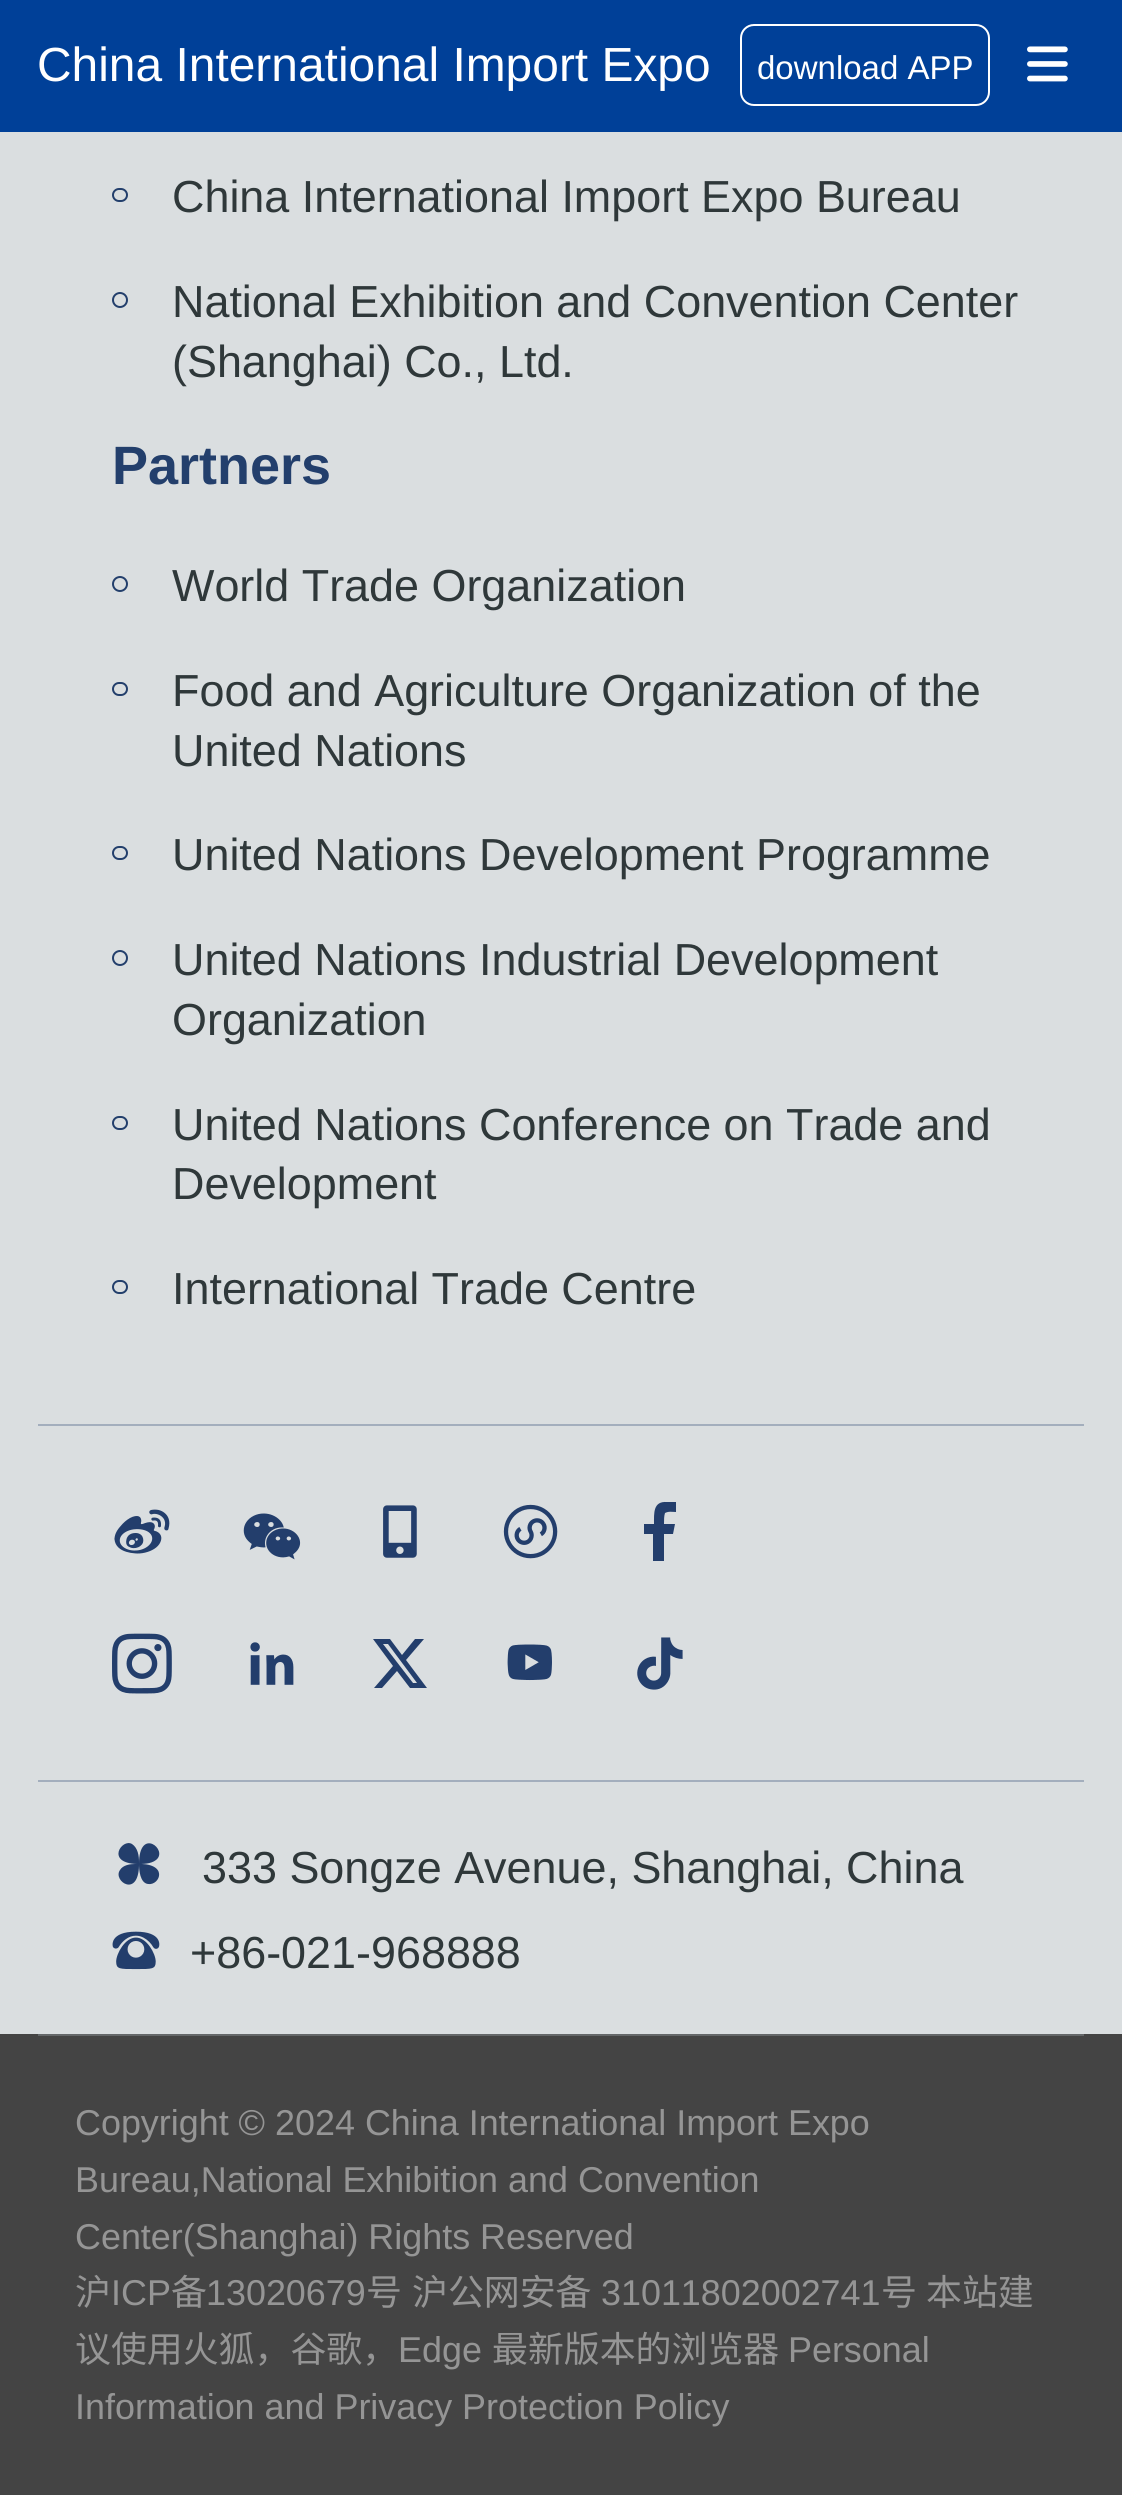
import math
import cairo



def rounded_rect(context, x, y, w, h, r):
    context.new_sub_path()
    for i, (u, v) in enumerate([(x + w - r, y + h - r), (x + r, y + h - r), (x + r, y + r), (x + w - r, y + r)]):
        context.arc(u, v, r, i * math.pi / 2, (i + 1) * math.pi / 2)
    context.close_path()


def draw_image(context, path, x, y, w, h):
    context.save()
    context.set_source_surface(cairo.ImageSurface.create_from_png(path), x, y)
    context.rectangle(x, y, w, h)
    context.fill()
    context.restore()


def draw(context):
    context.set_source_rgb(218 / 255, 222 / 255, 224 / 255)
    context.paint()
    context.set_source_rgb(0, 64 / 255, 152 / 255)
    context.rectangle(0, 0, 1122, 132)
    context.fill()
    rounded_rect(context, 741, 25, 248, 80, 13)
    context.set_source_rgb(1, 1, 1)
    context.stroke()
    draw_image(context, "images/1.png", 1027, 46, 41, 36)
    rounded_rect(context, 113, 189, 14, 12, 6)
    context.set_source_rgb(35 / 255, 63 / 255, 108 / 255)
    context.stroke()
    context.arc(120, 300, 7, 0, 2 * math.pi)
    context.stroke()
    context.arc(120, 584, 7, 0, 2 * math.pi)
    context.stroke()
    rounded_rect(context, 113, 683, 14, 12, 6)
    context.stroke()
    rounded_rect(context, 113, 847, 14, 12, 6)
    context.stroke()
    context.arc(120, 958, 7, 0, 2 * math.pi)
    context.stroke()
    rounded_rect(context, 113, 1117, 14, 12, 6)
    context.stroke()
    rounded_rect(context, 113, 1281, 14, 12, 6)
    context.stroke()
    context.set_source_rgb(163 / 255, 174 / 255, 189 / 255)
    context.rectangle(38, 1424, 1046, 2)
    context.fill()
    context.rectangle(38, 1780, 1046, 2)
    context.fill()
    draw_image(context, "images/2.png", 114, 1509, 56, 45)
    draw_image(context, "images/3.png", 243, 1513, 58, 47)
    draw_image(context, "images/4.png", 383, 1505, 34, 53)
    draw_image(context, "images/5.png", 503, 1504, 55, 55)
    context.set_source_rgb(35 / 255, 62 / 255, 108 / 255)
    context.new_path()
    context.move_to(667, 1502)
    context.curve_to(653, 1501, 654, 1513, 654, 1524)
    context.line_to(644, 1524)
    context.line_to(644, 1534)
    context.line_to(653, 1534)
    context.line_to(653, 1561)
    context.line_to(664, 1561)
    context.line_to(664, 1534)
    context.line_to(673, 1534)
    context.line_to(675, 1524)
    context.line_to(664, 1524)
    context.curve_to(664, 1520, 664, 1516, 665, 1513)
    context.curve_to(669, 1511, 672, 1512, 676, 1512)
    context.line_to(676, 1502)
    context.close_path()
    context.fill()
    draw_image(context, "images/6.png", 112, 1633, 60, 61)
    draw_image(context, "images/7.png", 250, 1642, 44, 43)
    context.new_path()
    context.move_to(415, 1639)
    context.line_to(424, 1639)
    context.line_to(406, 1660)
    context.line_to(427, 1688)
    context.line_to(410, 1688)
    context.line_to(397, 1671)
    context.line_to(382, 1688)
    context.line_to(374, 1688)
    context.line_to(393, 1666)
    context.line_to(373, 1639)
    context.line_to(390, 1639)
    context.line_to(402, 1655)
    context.close_path()
    context.move_to(413, 1683)
    context.line_to(417, 1683)
    context.line_to(388, 1644)
    context.line_to(383, 1644)
    context.close_path()
    context.fill()
    draw_image(context, "images/8.png", 507, 1644, 45, 37)
    draw_image(context, "images/9.png", 637, 1637, 46, 53)
    context.new_path()
    context.move_to(139, 1864)
    context.curve_to(139, 1870, 140, 1883, 148, 1884)
    context.curve_to(160, 1886, 170, 1862, 135, 1864)
    context.curve_to(130, 1864, 123, 1865, 120, 1870)
    context.curve_to(112, 1881, 140, 1900, 139, 1862)
    context.curve_to(139, 1856, 138, 1848, 132, 1844)
    context.curve_to(122, 1838, 105, 1863, 137, 1864)
    context.curve_to(143, 1864, 151, 1864, 156, 1860)
    context.curve_to(169, 1850, 139, 1826, 139, 1864)
    context.close_path()
    context.fill()
    draw_image(context, "images/10.png", 112, 1931, 48, 39)
    context.set_source_rgb(68 / 255, 68 / 255, 68 / 255)
    context.rectangle(0, 2034, 1122, 461)
    context.fill()
    context.set_source_rgb(100 / 255, 103 / 255, 105 / 255)
    context.rectangle(38, 2034, 1046, 2)
    context.fill()
    context.select_font_face("Liberation Sans")
    context.set_font_size(47.9)
    context.set_source_rgb(1, 1, 1)
    context.move_to(37, 81)
    context.show_text("China International Import Expo")
    context.set_font_size(33)
    context.move_to(757, 79)
    context.show_text("download APP")
    context.set_font_size(44.9)
    context.set_source_rgb(47 / 255, 56 / 255, 58 / 255)
    context.move_to(172, 212)
    context.show_text("China International Import Expo Bureau")
    context.move_to(172, 317)
    context.show_text("National Exhibition and Convention Center")
    context.move_to(172, 377)
    context.show_text("(Shanghai) Co., Ltd.")
    context.select_font_face("Liberation Sans", cairo.FontSlant.NORMAL, cairo.FontWeight.BOLD)
    context.set_font_size(54)
    context.set_source_rgb(35 / 255, 63 / 255, 108 / 255)
    context.move_to(112, 484)
    context.show_text("Partners")
    context.select_font_face("Liberation Sans")
    context.set_font_size(44.9)
    context.set_source_rgb(47 / 255, 56 / 255, 58 / 255)
    context.move_to(172, 601)
    context.show_text("World Trade Organization")
    context.move_to(172, 706)
    context.show_text("Food and Agriculture Organization of the")
    context.move_to(172, 766)
    context.show_text("United Nations")
    context.move_to(172, 870)
    context.show_text("United Nations Development Programme")
    context.move_to(172, 975)
    context.show_text("United Nations Industrial Development")
    context.move_to(172, 1035)
    context.show_text("Organization")
    context.move_to(172, 1140)
    context.show_text("United Nations Conference on Trade and")
    context.move_to(172, 1199)
    context.show_text("Development")
    context.move_to(172, 1304)
    context.show_text("International Trade Centre")
    context.move_to(202, 1883)
    context.show_text("333 Songze Avenue, Shanghai, China")
    context.move_to(190, 1968)
    context.show_text("+86-021-968888")
    context.set_font_size(35.9)
    context.set_source_rgb(149 / 255, 149 / 255, 149 / 255)
    context.move_to(75, 2135)
    context.show_text("Copyright © 2024 China International Import Expo")
    context.move_to(75, 2192)
    context.show_text("Bureau,National Exhibition and Convention")
    context.move_to(75, 2249)
    context.show_text("Center(Shanghai) Rights Reserved")
    context.select_font_face("Noto Sans CJK SC")
    context.move_to(75, 2305)
    context.show_text("沪")
    context.select_font_face("Liberation Sans")
    context.move_to(111, 2305)
    context.show_text("ICP")
    context.select_font_face("Noto Sans CJK SC")
    context.move_to(171, 2305)
    context.show_text("备")
    context.select_font_face("Liberation Sans")
    context.move_to(206, 2305)
    context.show_text("13020679")
    context.select_font_face("Noto Sans CJK SC")
    context.move_to(366, 2305)
    context.show_text("号")
    context.move_to(412, 2305)
    context.show_text("沪公网安备")
    context.select_font_face("Liberation Sans")
    context.move_to(601, 2305)
    context.show_text("31011802002741")
    context.select_font_face("Noto Sans CJK SC")
    context.move_to(881, 2305)
    context.show_text("号")
    context.move_to(926, 2305)
    context.show_text("本站建")
    context.move_to(75, 2362)
    context.show_text("议使用火狐，谷歌，")
    context.select_font_face("Liberation Sans")
    context.move_to(398, 2362)
    context.show_text("Edge")
    context.select_font_face("Noto Sans CJK SC")
    context.move_to(492, 2362)
    context.show_text("最新版本的浏览器")
    context.select_font_face("Liberation Sans")
    context.move_to(788, 2362)
    context.show_text("Personal")
    context.move_to(75, 2419)
    context.show_text("Information and Privacy Protection Policy")


surface = cairo.ImageSurface(cairo.Format.RGB24, 1122, 2495)
context = cairo.Context(surface)
options = cairo.FontOptions()
options.set_hint_metrics(cairo.HintMetrics.OFF)
options.set_hint_style(cairo.HintStyle.NONE)
context.set_font_options(options)
context.set_miter_limit(4)
draw(context)
surface.write_to_png("out.png")
